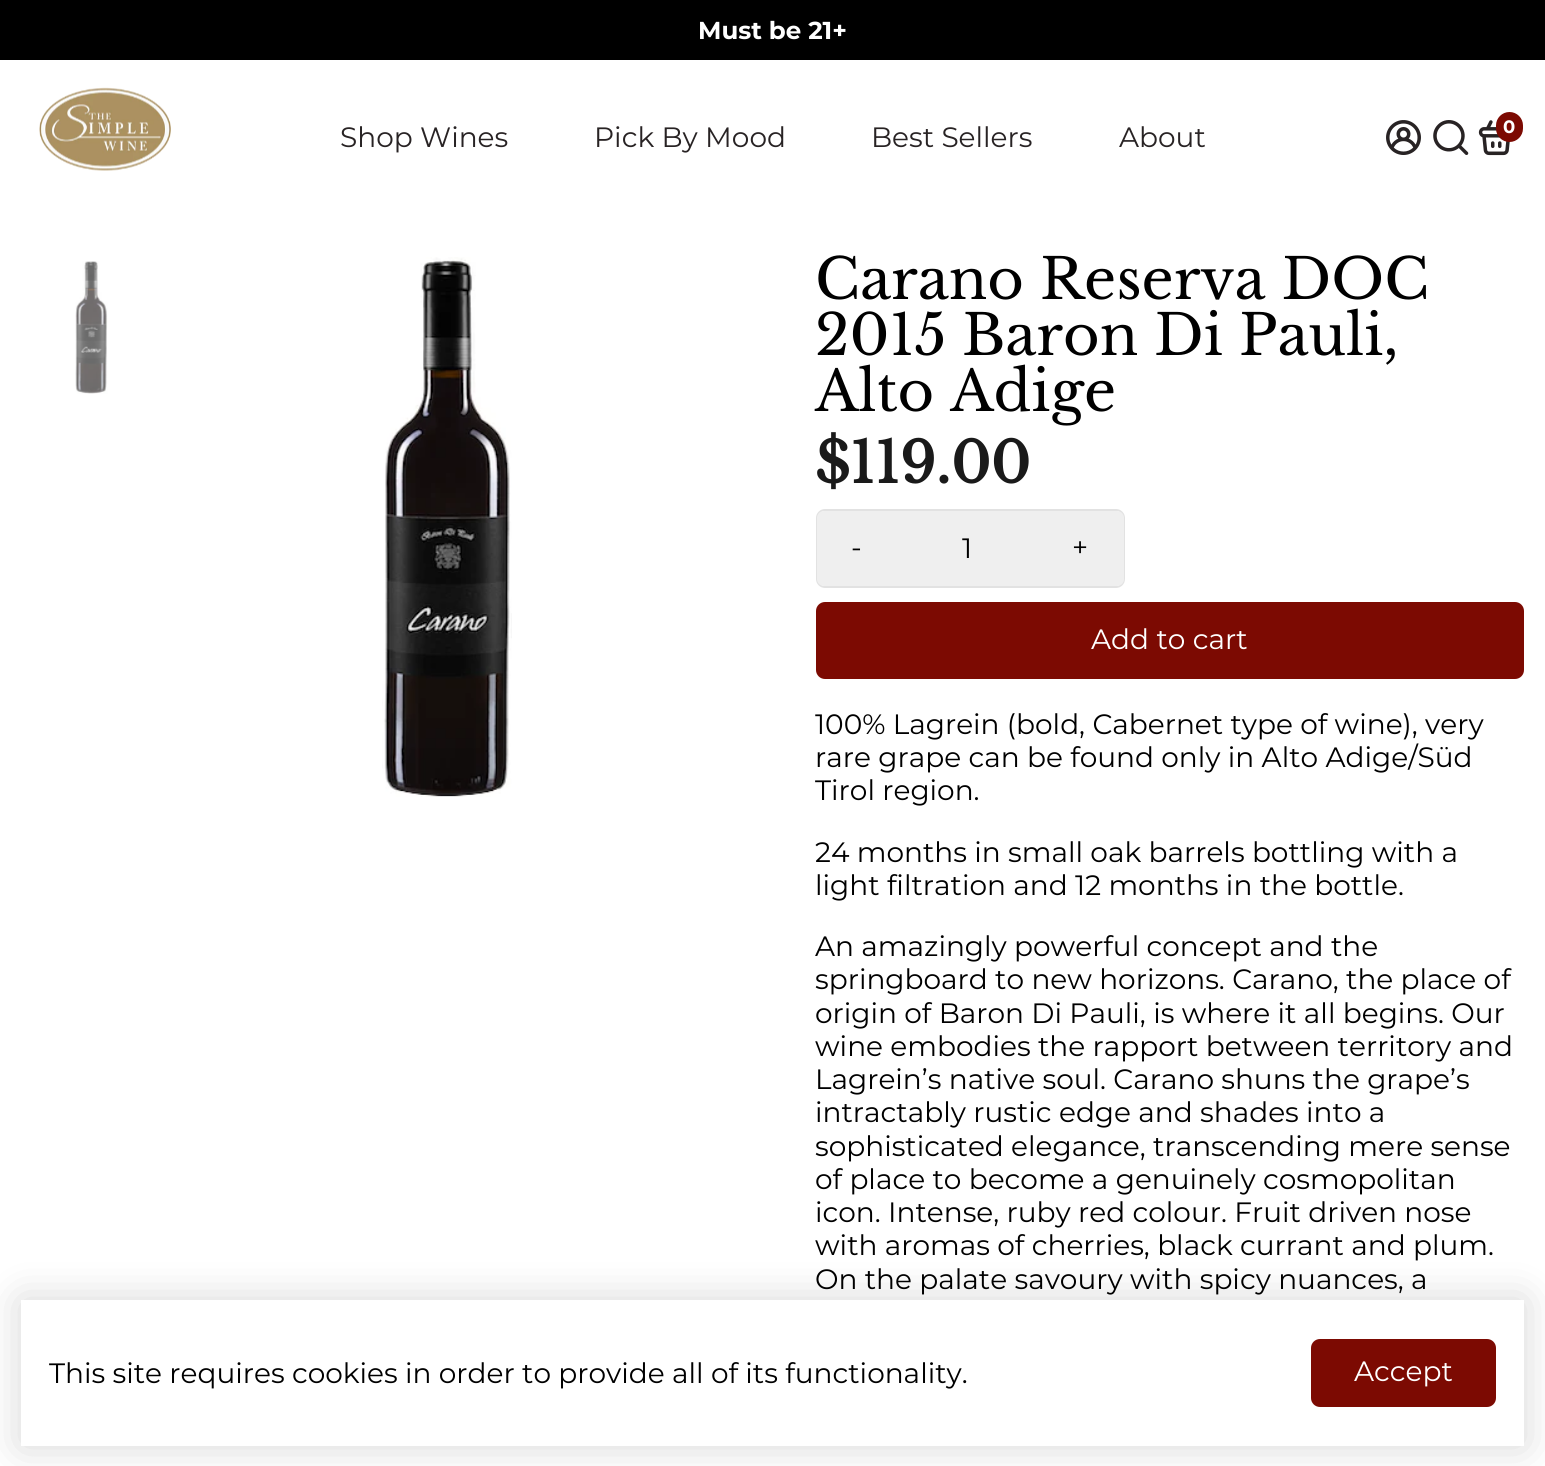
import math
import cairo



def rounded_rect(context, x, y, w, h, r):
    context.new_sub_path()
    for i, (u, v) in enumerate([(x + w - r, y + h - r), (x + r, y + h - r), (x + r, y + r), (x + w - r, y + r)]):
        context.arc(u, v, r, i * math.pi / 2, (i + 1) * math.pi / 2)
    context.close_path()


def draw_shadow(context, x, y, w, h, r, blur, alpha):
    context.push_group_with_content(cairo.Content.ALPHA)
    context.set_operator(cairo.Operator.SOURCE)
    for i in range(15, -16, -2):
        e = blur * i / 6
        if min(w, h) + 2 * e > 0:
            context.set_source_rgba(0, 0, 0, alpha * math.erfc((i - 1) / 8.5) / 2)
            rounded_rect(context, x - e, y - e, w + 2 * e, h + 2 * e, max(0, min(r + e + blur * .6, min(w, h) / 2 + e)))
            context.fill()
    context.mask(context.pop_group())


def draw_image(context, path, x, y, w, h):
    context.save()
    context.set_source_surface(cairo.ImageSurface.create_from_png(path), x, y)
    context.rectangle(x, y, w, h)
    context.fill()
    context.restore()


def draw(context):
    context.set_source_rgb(1, 1, 1)
    context.paint()
    context.set_source_rgb(0, 0, 0)
    context.rectangle(0, 0, 1545, 60)
    context.fill()
    draw_image(context, "images/1.png", 39, 87, 132, 84)
    draw_image(context, "images/2.png", 1386, 120, 35, 35)
    draw_image(context, "images/3.png", 1433, 120, 36, 35)
    draw_image(context, "images/4.png", 1478, 120, 32, 36)
    context.set_source_rgb(124 / 255, 10 / 255, 2 / 255)
    rounded_rect(context, 1496, 112, 27, 30, 13.5)
    context.fill()
    draw_image(context, "images/5.png", 75, 261, 33, 133)
    draw_image(context, "images/6.png", 382, 257, 130, 540)
    rounded_rect(context, 817, 510, 307, 77, 8)
    context.set_source_rgb(226 / 255, 226 / 255, 226 / 255)
    context.stroke()
    context.set_source_rgb(239 / 255, 239 / 255, 239 / 255)
    context.new_path()
    context.move_to(824, 511)
    context.line_to(898, 511)
    context.line_to(898, 586)
    context.line_to(824, 586)
    context.curve_to(820, 586, 817, 583, 817, 579)
    context.line_to(817, 518)
    context.curve_to(817, 514, 820, 511, 824, 511)
    context.close_path()
    context.fill()
    context.rectangle(898, 511, 140, 75)
    context.fill()
    context.new_path()
    context.move_to(1038, 511)
    context.line_to(1117, 511)
    context.curve_to(1121, 511, 1124, 514, 1124, 518)
    context.line_to(1124, 579)
    context.curve_to(1124, 583, 1121, 586, 1117, 586)
    context.line_to(1038, 586)
    context.close_path()
    context.fill()
    context.set_source_rgb(124 / 255, 10 / 255, 2 / 255)
    rounded_rect(context, 816, 602, 708, 77, 9)
    context.fill()
    context.set_source_rgb(0, 0, 0)
    draw_shadow(context, 21, 1300, 1503, 146, 0, 21, 0.16)
    context.set_source_rgb(1, 1, 1)
    context.rectangle(21, 1300, 1503, 146)
    context.fill()
    context.set_source_rgb(124 / 255, 10 / 255, 2 / 255)
    rounded_rect(context, 1311, 1339, 185, 68, 9)
    context.fill()
    context.select_font_face("Montserrat", cairo.FontSlant.NORMAL, cairo.FontWeight.BOLD)
    context.set_font_size(24.5)
    context.set_source_rgb(1, 1, 1)
    context.move_to(698, 39)
    context.show_text("Must be 21+")
    context.select_font_face("Montserrat")
    context.set_font_size(28)
    context.set_source_rgb(40 / 255, 35 / 255, 36 / 255)
    context.move_to(340, 147)
    context.show_text("Shop Wines")
    context.move_to(594, 147)
    context.show_text("Pick By Mood")
    context.move_to(871, 147)
    context.show_text("Best Sellers")
    context.move_to(1119, 147)
    context.show_text("About")
    context.select_font_face("Montserrat", cairo.FontSlant.NORMAL, cairo.FontWeight.BOLD)
    context.set_font_size(18)
    context.set_source_rgb(1, 1, 1)
    context.move_to(1503, 133)
    context.show_text("0")
    context.select_font_face("Libre Baskerville")
    context.set_font_size(56)
    context.set_source_rgb(0, 0, 0)
    context.move_to(815, 299)
    context.show_text("Carano Reserva DOC")
    context.move_to(815, 355)
    context.show_text("2015 Baron Di Pauli,")
    context.move_to(815, 411)
    context.show_text("Alto Adige")
    context.select_font_face("Libre Baskerville", cairo.FontSlant.NORMAL, cairo.FontWeight.BOLD)
    context.set_source_rgb(26 / 255, 26 / 255, 26 / 255)
    context.move_to(815, 483)
    context.show_text("$119.00")
    context.select_font_face("Montserrat")
    context.set_font_size(28)
    context.set_source_rgb(0, 0, 0)
    context.move_to(851, 557)
    context.show_text("-")
    context.move_to(962, 558)
    context.show_text("1")
    context.move_to(1072, 557)
    context.show_text("+")
    context.set_source_rgb(1, 1, 1)
    context.move_to(1091, 649)
    context.show_text("Add to cart")
    context.set_source_rgb(0, 0, 0)
    context.move_to(815, 734)
    context.show_text("100% Lagrein (bold, Cabernet type of wine), very")
    context.move_to(815, 767)
    context.show_text("rare grape can be found only in Alto Adige/Süd")
    context.move_to(815, 800)
    context.show_text("Tirol region.")
    context.move_to(815, 862)
    context.show_text("24 months in small oak barrels bottling with a")
    context.move_to(815, 895)
    context.show_text("light filtration and 12 months in the bottle.")
    context.move_to(815, 956)
    context.show_text("An amazingly powerful concept and the")
    context.move_to(815, 989)
    context.show_text("springboard to new horizons. Carano, the place of")
    context.move_to(815, 1023)
    context.show_text("origin of Baron Di Pauli, is where it all begins. Our")
    context.move_to(815, 1056)
    context.show_text("wine embodies the rapport between territory and")
    context.move_to(815, 1089)
    context.show_text("Lagrein’s native soul. Carano shuns the grape’s")
    context.move_to(815, 1122)
    context.show_text("intractably rustic edge and shades into a")
    context.move_to(815, 1156)
    context.show_text("sophisticated elegance, transcending mere sense")
    context.move_to(815, 1189)
    context.show_text("of place to become a genuinely cosmopolitan")
    context.move_to(815, 1222)
    context.show_text("icon. Intense, ruby red colour. Fruit driven nose")
    context.move_to(815, 1255)
    context.show_text("with aromas of cherries, black currant and plum.")
    context.move_to(815, 1289)
    context.show_text("On the palate savoury with spicy nuances, a")
    context.move_to(49, 1383)
    context.show_text("This site requires cookies in order to provide all of its functionality.")
    context.set_source_rgb(1, 1, 1)
    context.move_to(1354, 1381)
    context.show_text("Accept")


surface = cairo.ImageSurface(cairo.Format.RGB24, 1545, 1466)
context = cairo.Context(surface)
options = cairo.FontOptions()
options.set_hint_metrics(cairo.HintMetrics.OFF)
options.set_hint_style(cairo.HintStyle.NONE)
context.set_font_options(options)
context.set_miter_limit(4)
draw(context)
surface.write_to_png("out.png")
